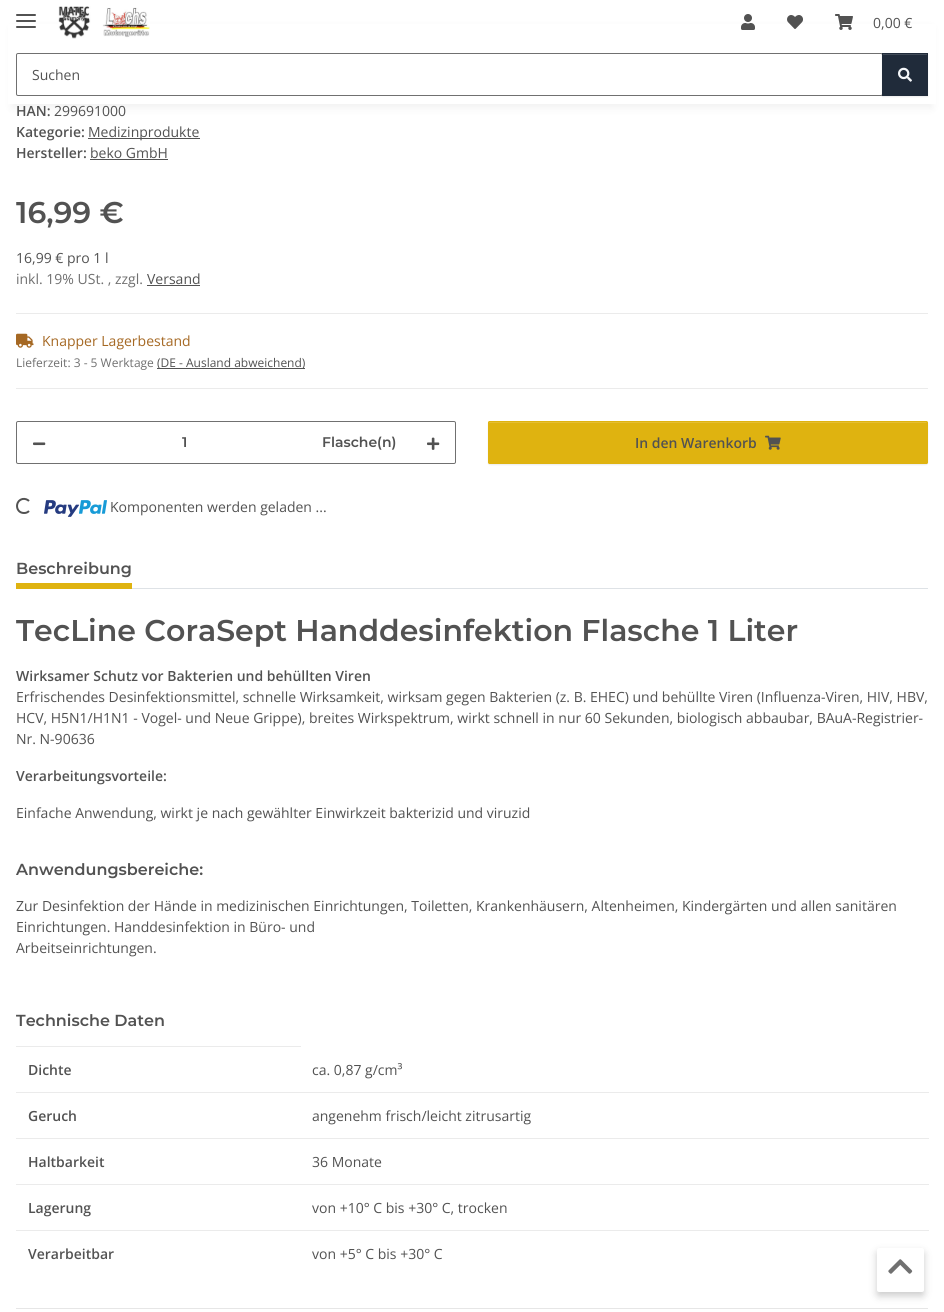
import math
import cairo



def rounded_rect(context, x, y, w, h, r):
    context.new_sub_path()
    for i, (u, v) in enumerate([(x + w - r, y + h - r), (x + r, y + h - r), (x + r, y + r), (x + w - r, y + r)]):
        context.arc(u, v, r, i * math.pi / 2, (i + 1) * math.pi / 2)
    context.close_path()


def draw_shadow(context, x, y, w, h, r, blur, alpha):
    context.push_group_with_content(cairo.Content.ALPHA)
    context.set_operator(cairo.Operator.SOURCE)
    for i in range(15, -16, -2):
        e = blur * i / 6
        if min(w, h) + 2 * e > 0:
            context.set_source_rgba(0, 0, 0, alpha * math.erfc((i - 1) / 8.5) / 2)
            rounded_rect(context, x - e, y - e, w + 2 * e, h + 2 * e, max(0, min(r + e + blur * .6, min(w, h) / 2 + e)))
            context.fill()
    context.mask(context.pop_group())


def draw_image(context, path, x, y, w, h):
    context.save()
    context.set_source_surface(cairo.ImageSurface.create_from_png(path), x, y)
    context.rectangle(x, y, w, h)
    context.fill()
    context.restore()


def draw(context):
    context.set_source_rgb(1, 1, 1)
    context.paint()
    context.set_source_rgb(0, 0, 0)
    draw_shadow(context, 12, 28, 920, 80, 0, 4.5, 0.06)
    context.set_source_rgb(1, 1, 1)
    context.rectangle(8, 24, 928, 80)
    context.fill()
    context.set_source_rgb(82 / 255, 82 / 255, 82 / 255)
    rounded_rect(context, 16, 20, 20, 2, 1)
    context.fill()
    rounded_rect(context, 16, 14, 20, 2, 1)
    context.fill()
    rounded_rect(context, 16, 26, 20, 2, 1)
    context.fill()
    draw_image(context, "images/1.png", 58, 6, 92, 33)
    draw_image(context, "images/2.png", 741, 14, 14, 16)
    draw_image(context, "images/3.png", 787, 15, 16, 14)
    draw_image(context, "images/4.png", 835, 14, 18, 16)
    rounded_rect(context, 16.5, 53.5, 866, 42, 1.5)
    context.set_source_rgb(112 / 255, 112 / 255, 112 / 255)
    context.set_line_width(1)
    context.stroke()
    context.set_source_rgb(0, 0, 0)
    draw_shadow(context, 882, 54, 46, 43, 0, 0.5, 0.07)
    context.set_source_rgb(32 / 255, 43 / 255, 58 / 255)
    context.rectangle(882, 53, 46, 43)
    context.fill()
    context.set_source_rgb(65 / 255, 75 / 255, 88 / 255)
    context.rectangle(883, 54, 44, 1)
    context.fill()
    draw_image(context, "images/5.png", 898, 67, 14, 15)
    context.set_source_rgb(82 / 255, 82 / 255, 82 / 255)
    context.rectangle(88, 138, 112, 1)
    context.fill()
    context.rectangle(90, 159, 78, 1)
    context.fill()
    context.rectangle(147, 285, 53, 1)
    context.fill()
    context.set_source_rgb(235 / 255, 235 / 255, 235 / 255)
    context.rectangle(16, 313, 912, 1)
    context.fill()
    context.rectangle(16, 388, 912, 1)
    context.fill()
    draw_image(context, "images/6.png", 16, 333, 18, 15)
    context.set_source_rgb(82 / 255, 82 / 255, 82 / 255)
    context.rectangle(157, 368, 148, 1)
    context.fill()
    rounded_rect(context, 16.5, 421.5, 439, 42, 1.5)
    context.set_source_rgb(112 / 255, 112 / 255, 112 / 255)
    context.stroke()
    draw_image(context, "images/7.png", 33, 442, 13, 4)
    draw_image(context, "images/8.png", 427, 437, 13, 13)
    context.set_source_rgb(0, 0, 0)
    draw_shadow(context, 488, 422, 440, 43, 2, 0.5, 0.07)
    context.set_source_rgb(223 / 255, 179 / 255, 16 / 255)
    rounded_rect(context, 488, 421, 440, 43, 2)
    context.fill()
    context.set_source_rgb(228 / 255, 190 / 255, 52 / 255)
    context.new_path()
    context.move_to(490, 423)
    context.line_to(926, 423)
    context.line_to(927, 423)
    context.line_to(927, 424)
    context.line_to(927, 423)
    context.line_to(926, 422)
    context.line_to(489, 422)
    context.line_to(489, 424)
    context.curve_to(489, 423, 489, 423, 490, 423)
    context.close_path()
    context.fill()
    rounded_rect(context, 488.5, 421.5, 439, 42, 1.5)
    context.set_source_rgb(223 / 255, 179 / 255, 16 / 255)
    context.stroke()
    draw_image(context, "images/9.png", 765, 435, 16, 15)
    context.new_path()
    context.move_to(29, 511)
    context.curve_to(27.5, 512.5, 26, 513, 24, 513)
    context.curve_to(15.5, 513, 14.5, 501, 22.5, 499)
    context.curve_to(25, 498.5, 27.5, 499.5, 29, 501)
    context.set_source_rgb(82 / 255, 82 / 255, 82 / 255)
    context.set_line_width(2)
    context.stroke()
    draw_image(context, "images/10.png", 44, 500, 63, 17)
    context.set_source_rgb(222 / 255, 226 / 255, 230 / 255)
    context.rectangle(132, 588, 796, 1)
    context.fill()
    context.set_source_rgb(223 / 255, 179 / 255, 16 / 255)
    context.rectangle(16, 583, 116, 6)
    context.fill()
    context.set_source_rgb(235 / 255, 235 / 255, 235 / 255)
    context.rectangle(16, 1046, 285, 1)
    context.fill()
    context.rectangle(16, 1092, 913, 1)
    context.fill()
    context.rectangle(16, 1138, 913, 1)
    context.fill()
    context.rectangle(16, 1184, 913, 1)
    context.fill()
    context.rectangle(16, 1230, 913, 1)
    context.fill()
    context.set_source_rgb(230 / 255, 230 / 255, 230 / 255)
    context.rectangle(16, 1308, 912, 1)
    context.fill()
    context.set_source_rgb(0, 0, 0)
    draw_shadow(context, 877, 1252, 47, 44, 2, 4, 0.2)
    context.set_source_rgb(1, 1, 1)
    rounded_rect(context, 877, 1248, 47, 44, 2)
    context.fill()
    draw_image(context, "images/11.png", 888, 1259, 25, 15)
    context.select_font_face("Open Sans")
    context.set_font_size(14)
    context.set_source_rgb(82 / 255, 82 / 255, 82 / 255)
    context.move_to(873, 28)
    context.show_text("0,00 €")
    context.move_to(32, 80)
    context.show_text("Suchen")
    context.select_font_face("Open Sans SemiBold")
    context.move_to(16, 116)
    context.show_text("HAN:")
    context.select_font_face("Open Sans")
    context.move_to(54, 116)
    context.show_text("299691000")
    context.select_font_face("Open Sans SemiBold")
    context.move_to(16, 137)
    context.show_text("Kategorie:")
    context.select_font_face("Open Sans")
    context.move_to(88, 137)
    context.show_text("Medizinprodukte")
    context.select_font_face("Open Sans SemiBold")
    context.move_to(16, 158)
    context.show_text("Hersteller:")
    context.select_font_face("Open Sans")
    context.move_to(90, 158)
    context.show_text("beko GmbH")
    context.select_font_face("Montserrat SemiBold")
    context.set_font_size(30)
    context.move_to(16, 223)
    context.show_text("16,99 €")
    context.select_font_face("Open Sans")
    context.set_font_size(14)
    context.move_to(16, 263)
    context.show_text("16,99 € pro 1 l")
    context.set_source_rgb(112 / 255, 112 / 255, 112 / 255)
    context.move_to(16, 284)
    context.show_text("inkl. 19% USt. , zzgl.")
    context.set_source_rgb(82 / 255, 82 / 255, 82 / 255)
    context.move_to(147, 284)
    context.show_text("Versand")
    context.set_source_rgb(165 / 255, 104 / 255, 35 / 255)
    context.move_to(42, 346)
    context.show_text("Knapper Lagerbestand")
    context.set_font_size(12)
    context.set_source_rgb(112 / 255, 112 / 255, 112 / 255)
    context.move_to(16, 367)
    context.show_text("Lieferzeit: 3 - 5 Werktage")
    context.set_source_rgb(82 / 255, 82 / 255, 82 / 255)
    context.move_to(157, 367)
    context.show_text("(DE - Ausland abweichend)")
    context.select_font_face("Montserrat SemiBold")
    context.set_font_size(14)
    context.move_to(182, 447)
    context.show_text("1")
    context.move_to(322, 447)
    context.show_text("Flasche(n)")
    context.select_font_face("Open Sans SemiBold")
    context.move_to(635, 448)
    context.show_text("In den Warenkorb")
    context.select_font_face("Open Sans")
    context.move_to(110, 512)
    context.show_text("Komponenten werden geladen ...")
    context.select_font_face("Montserrat SemiBold")
    context.set_font_size(16)
    context.move_to(16, 574)
    context.show_text("Beschreibung")
    context.set_font_size(30)
    context.move_to(16, 641)
    context.show_text("TecLine CoraSept Handdesinfektion Flasche 1 Liter")
    context.select_font_face("Open Sans SemiBold")
    context.set_font_size(14)
    context.move_to(16, 681)
    context.show_text("Wirksamer Schutz vor Bakterien und behüllten Viren")
    context.select_font_face("Open Sans")
    context.move_to(16, 702)
    context.show_text("Erfrischendes Desinfektionsmittel, schnelle Wirksamkeit, wirksam gegen Bakterien (z. B. EHEC) und behüllte Viren (Influenza-Viren, HIV, HBV,")
    context.move_to(16, 723)
    context.show_text("HCV, H5N1/H1N1 - Vogel- und Neue Grippe), breites Wirkspektrum, wirkt schnell in nur 60 Sekunden, biologisch abbaubar, BAuA-Registrier-")
    context.move_to(16, 744)
    context.show_text("Nr. N-90636")
    context.select_font_face("Open Sans SemiBold")
    context.move_to(16, 781)
    context.show_text("Verarbeitungsvorteile:")
    context.select_font_face("Open Sans")
    context.move_to(16, 818)
    context.show_text("Einfache Anwendung, wirkt je nach gewählter Einwirkzeit bakterizid und viruzid")
    context.select_font_face("Montserrat SemiBold")
    context.set_font_size(16)
    context.move_to(16, 875)
    context.show_text("Anwendungsbereiche:")
    context.select_font_face("Open Sans")
    context.set_font_size(14)
    context.move_to(16, 911)
    context.show_text("Zur Desinfektion der Hände in medizinischen Einrichtungen, Toiletten, Krankenhäusern, Altenheimen, Kindergärten und allen sanitären")
    context.move_to(16, 932)
    context.show_text("Einrichtungen. Handdesinfektion in Büro- und")
    context.move_to(16, 953)
    context.show_text("Arbeitseinrichtungen.")
    context.select_font_face("Montserrat SemiBold")
    context.set_font_size(16)
    context.move_to(16, 1026)
    context.show_text("Technische Daten")
    context.select_font_face("Open Sans SemiBold")
    context.set_font_size(14)
    context.move_to(28, 1075)
    context.show_text("Dichte")
    context.select_font_face("Open Sans")
    context.move_to(312, 1075)
    context.show_text("ca. 0,87 g/cm³")
    context.select_font_face("Open Sans SemiBold")
    context.move_to(28, 1121)
    context.show_text("Geruch")
    context.select_font_face("Open Sans")
    context.move_to(312, 1121)
    context.show_text("angenehm frisch/leicht zitrusartig")
    context.select_font_face("Open Sans SemiBold")
    context.move_to(28, 1167)
    context.show_text("Haltbarkeit")
    context.select_font_face("Open Sans")
    context.move_to(312, 1167)
    context.show_text("36 Monate")
    context.select_font_face("Open Sans SemiBold")
    context.move_to(28, 1213)
    context.show_text("Lagerung")
    context.select_font_face("Open Sans")
    context.move_to(312, 1213)
    context.show_text("von +10° C bis +30° C, trocken")
    context.select_font_face("Open Sans SemiBold")
    context.move_to(28, 1259)
    context.show_text("Verarbeitbar")
    context.select_font_face("Open Sans")
    context.move_to(312, 1259)
    context.show_text("von +5° C bis +30° C")


surface = cairo.ImageSurface(cairo.Format.RGB24, 944, 1312)
context = cairo.Context(surface)
options = cairo.FontOptions()
options.set_hint_metrics(cairo.HintMetrics.OFF)
options.set_hint_style(cairo.HintStyle.NONE)
context.set_font_options(options)
context.set_miter_limit(4)
draw(context)
surface.write_to_png("out.png")
